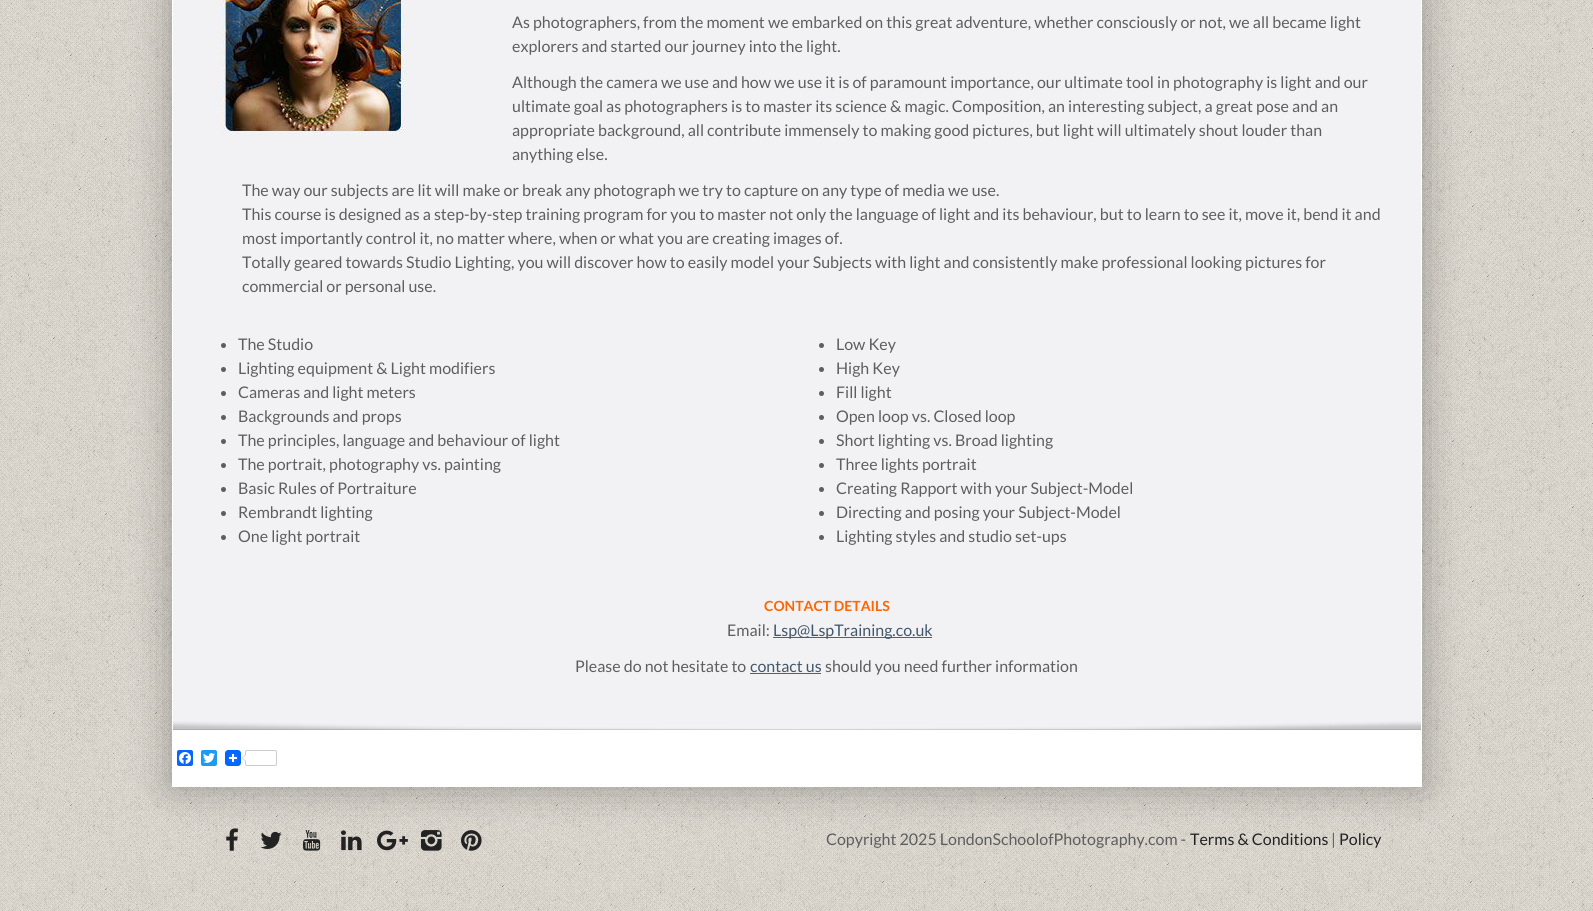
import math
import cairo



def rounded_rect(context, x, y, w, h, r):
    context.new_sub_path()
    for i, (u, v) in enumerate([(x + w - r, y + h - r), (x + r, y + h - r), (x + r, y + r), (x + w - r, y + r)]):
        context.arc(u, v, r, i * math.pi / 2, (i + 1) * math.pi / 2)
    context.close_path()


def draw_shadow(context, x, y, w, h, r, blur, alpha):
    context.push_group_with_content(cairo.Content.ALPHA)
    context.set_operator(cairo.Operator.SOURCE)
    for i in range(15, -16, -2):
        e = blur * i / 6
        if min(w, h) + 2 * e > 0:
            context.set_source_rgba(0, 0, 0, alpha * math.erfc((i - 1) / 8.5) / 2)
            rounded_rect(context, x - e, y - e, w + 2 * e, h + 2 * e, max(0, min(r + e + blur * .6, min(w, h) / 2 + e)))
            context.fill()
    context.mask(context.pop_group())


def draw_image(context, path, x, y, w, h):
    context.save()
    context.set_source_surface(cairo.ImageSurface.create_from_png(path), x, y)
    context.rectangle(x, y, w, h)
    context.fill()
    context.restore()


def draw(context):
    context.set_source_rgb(1, 1, 1)
    context.paint()
    draw_image(context, "images/1.png", 0, 0, 1593, 911)
    context.set_source_rgb(0, 0, 0)
    draw_shadow(context, 172, -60, 1250, 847, 0, 20, 0.3)
    context.set_source_rgb(1, 1, 1)
    context.rectangle(172, 0, 1250, 787)
    context.fill()
    context.set_source_rgb(242 / 255, 242 / 255, 244 / 255)
    context.rectangle(173, 0, 1248, 730)
    context.fill()
    draw_image(context, "images/2.png", 213, 0, 192, 135)
    context.set_source_rgb(94 / 255, 94 / 255, 94 / 255)
    context.arc(223.5, 345.5, 2.5, 0, 2 * math.pi)
    context.fill()
    context.arc(223.5, 369.5, 2.5, 0, 2 * math.pi)
    context.fill()
    context.arc(223.5, 393.5, 2.5, 0, 2 * math.pi)
    context.fill()
    context.arc(223.5, 417.5, 2.5, 0, 2 * math.pi)
    context.fill()
    context.arc(223.5, 441.5, 2.5, 0, 2 * math.pi)
    context.fill()
    context.arc(223.5, 465.5, 2.5, 0, 2 * math.pi)
    context.fill()
    context.arc(223.5, 489.5, 2.5, 0, 2 * math.pi)
    context.fill()
    context.arc(223.5, 513.5, 2.5, 0, 2 * math.pi)
    context.fill()
    context.arc(223.5, 537.5, 2.5, 0, 2 * math.pi)
    context.fill()
    context.arc(821.5, 345.5, 2.5, 0, 2 * math.pi)
    context.fill()
    context.arc(821.5, 369.5, 2.5, 0, 2 * math.pi)
    context.fill()
    context.arc(821.5, 393.5, 2.5, 0, 2 * math.pi)
    context.fill()
    context.arc(821.5, 417.5, 2.5, 0, 2 * math.pi)
    context.fill()
    context.arc(821.5, 441.5, 2.5, 0, 2 * math.pi)
    context.fill()
    context.arc(821.5, 465.5, 2.5, 0, 2 * math.pi)
    context.fill()
    context.arc(821.5, 489.5, 2.5, 0, 2 * math.pi)
    context.fill()
    context.arc(821.5, 513.5, 2.5, 0, 2 * math.pi)
    context.fill()
    context.arc(821.5, 537.5, 2.5, 0, 2 * math.pi)
    context.fill()
    context.rectangle(773, 637, 159, 1)
    context.fill()
    context.rectangle(750, 673, 71, 1)
    context.fill()
    draw_image(context, "images/3.png", 173, 721, 1248, 9)
    context.set_source_rgb(8 / 255, 102 / 255, 1)
    rounded_rect(context, 177, 750, 16, 16, 2)
    context.fill()
    draw_image(context, "images/4.png", 179, 752, 12, 12)
    context.set_source_rgb(29 / 255, 155 / 255, 240 / 255)
    rounded_rect(context, 201, 750, 16, 16, 2)
    context.fill()
    draw_image(context, "images/5.png", 203, 753, 12, 10)
    draw_image(context, "images/6.png", 225, 750, 16, 16)
    rounded_rect(context, 245.5, 750.5, 31, 15, 1.5)
    context.set_source_rgb(204 / 255, 204 / 255, 204 / 255)
    context.set_line_width(1)
    context.stroke()
    context.new_path()
    context.move_to(246, 754)
    context.line_to(246, 762)
    context.line_to(242, 758)
    context.close_path()
    context.fill()
    context.set_source_rgb(1, 1, 1)
    context.new_path()
    context.move_to(247, 754)
    context.line_to(247, 762)
    context.line_to(243, 758)
    context.close_path()
    context.fill()
    draw_image(context, "images/7.png", 226, 828, 12, 23)
    draw_image(context, "images/8.png", 260, 831, 22, 18)
    draw_image(context, "images/9.png", 303, 830, 18, 21)
    draw_image(context, "images/10.png", 341, 830, 21, 21)
    draw_image(context, "images/11.png", 377, 830, 31, 21)
    draw_image(context, "images/12.png", 421, 830, 21, 21)
    draw_image(context, "images/13.png", 461, 830, 21, 21)
    context.select_font_face("Lato")
    context.set_font_size(16)
    context.set_source_rgb(94 / 255, 94 / 255, 94 / 255)
    context.move_to(512, 28)
    context.show_text("As photographers, from the moment we embarked on this great adventure, whether consciously or not, we all became light")
    context.move_to(512, 52)
    context.show_text("explorers and started our journey into the light.")
    context.move_to(512, 88)
    context.show_text("Although the camera we use and how we use it is of paramount importance, our ultimate tool in photography is light and our")
    context.move_to(512, 112)
    context.show_text("ultimate goal as photographers is to master its science & magic. Composition, an interesting subject, a great pose and an")
    context.move_to(512, 136)
    context.show_text("appropriate background, all contribute immensely to making good pictures, but light will ultimately shout louder than")
    context.move_to(512, 160)
    context.show_text("anything else.")
    context.move_to(242, 196)
    context.show_text("The way our subjects are lit will make or break any photograph we try to capture on any type of media we use.")
    context.move_to(242, 220)
    context.show_text("This course is designed as a step-by-step training program for you to master not only the language of light and its behaviour, but to learn to see it, move it, bend it and")
    context.move_to(242, 244)
    context.show_text("most importantly control it, no matter where, when or what you are creating images of.")
    context.move_to(242, 268)
    context.show_text("Totally geared towards Studio Lighting, you will discover how to easily model your Subjects with light and consistently make professional looking pictures for")
    context.move_to(242, 292)
    context.show_text("commercial or personal use.")
    context.move_to(238, 350)
    context.show_text("The Studio")
    context.move_to(238, 374)
    context.show_text("Lighting equipment & Light modifiers")
    context.move_to(238, 398)
    context.show_text("Cameras and light meters")
    context.move_to(238, 422)
    context.show_text("Backgrounds and props")
    context.move_to(238, 446)
    context.show_text("The principles, language and behaviour of light")
    context.move_to(238, 470)
    context.show_text("The portrait, photography vs. painting")
    context.move_to(238, 494)
    context.show_text("Basic Rules of Portraiture")
    context.move_to(238, 518)
    context.show_text("Rembrandt lighting")
    context.move_to(238, 542)
    context.show_text("One light portrait")
    context.move_to(836, 350)
    context.show_text("Low Key")
    context.move_to(836, 374)
    context.show_text("High Key")
    context.move_to(836, 398)
    context.show_text("Fill light")
    context.move_to(836, 422)
    context.show_text("Open loop vs. Closed loop")
    context.move_to(836, 446)
    context.show_text("Short lighting vs. Broad lighting")
    context.move_to(836, 470)
    context.show_text("Three lights portrait")
    context.move_to(836, 494)
    context.show_text("Creating Rapport with your Subject-Model")
    context.move_to(836, 518)
    context.show_text("Directing and posing your Subject-Model")
    context.move_to(836, 542)
    context.show_text("Lighting styles and studio set-ups")
    context.select_font_face("Lato", cairo.FontSlant.NORMAL, cairo.FontWeight.BOLD)
    context.set_font_size(14)
    context.set_source_rgb(1, 102 / 255, 0)
    context.move_to(764, 611)
    context.show_text("CONTACT DETAILS")
    context.select_font_face("Lato")
    context.set_font_size(16)
    context.set_source_rgb(94 / 255, 94 / 255, 94 / 255)
    context.move_to(727, 636)
    context.show_text("Email:")
    context.set_source_rgb(66 / 255, 87 / 255, 106 / 255)
    context.move_to(773, 636)
    context.show_text("Lsp@LspTraining.co.uk")
    context.set_source_rgb(94 / 255, 94 / 255, 94 / 255)
    context.move_to(575, 672)
    context.show_text("Please do not hesitate to")
    context.set_source_rgb(66 / 255, 87 / 255, 106 / 255)
    context.move_to(750, 672)
    context.show_text("contact us")
    context.set_source_rgb(94 / 255, 94 / 255, 94 / 255)
    context.move_to(825, 672)
    context.show_text("should you need further information")
    context.move_to(826, 845)
    context.show_text("Copyright 2025 LondonSchoolofPhotography.com -")
    context.set_source_rgb(34 / 255, 34 / 255, 34 / 255)
    context.move_to(1190, 845)
    context.show_text("Terms & Conditions")
    context.set_source_rgb(94 / 255, 94 / 255, 94 / 255)
    context.move_to(1331, 845)
    context.show_text("|")
    context.set_source_rgb(34 / 255, 34 / 255, 34 / 255)
    context.move_to(1339, 845)
    context.show_text("Policy")


surface = cairo.ImageSurface(cairo.Format.RGB24, 1593, 911)
context = cairo.Context(surface)
options = cairo.FontOptions()
options.set_hint_metrics(cairo.HintMetrics.OFF)
options.set_hint_style(cairo.HintStyle.NONE)
context.set_font_options(options)
context.set_miter_limit(4)
draw(context)
surface.write_to_png("out.png")
